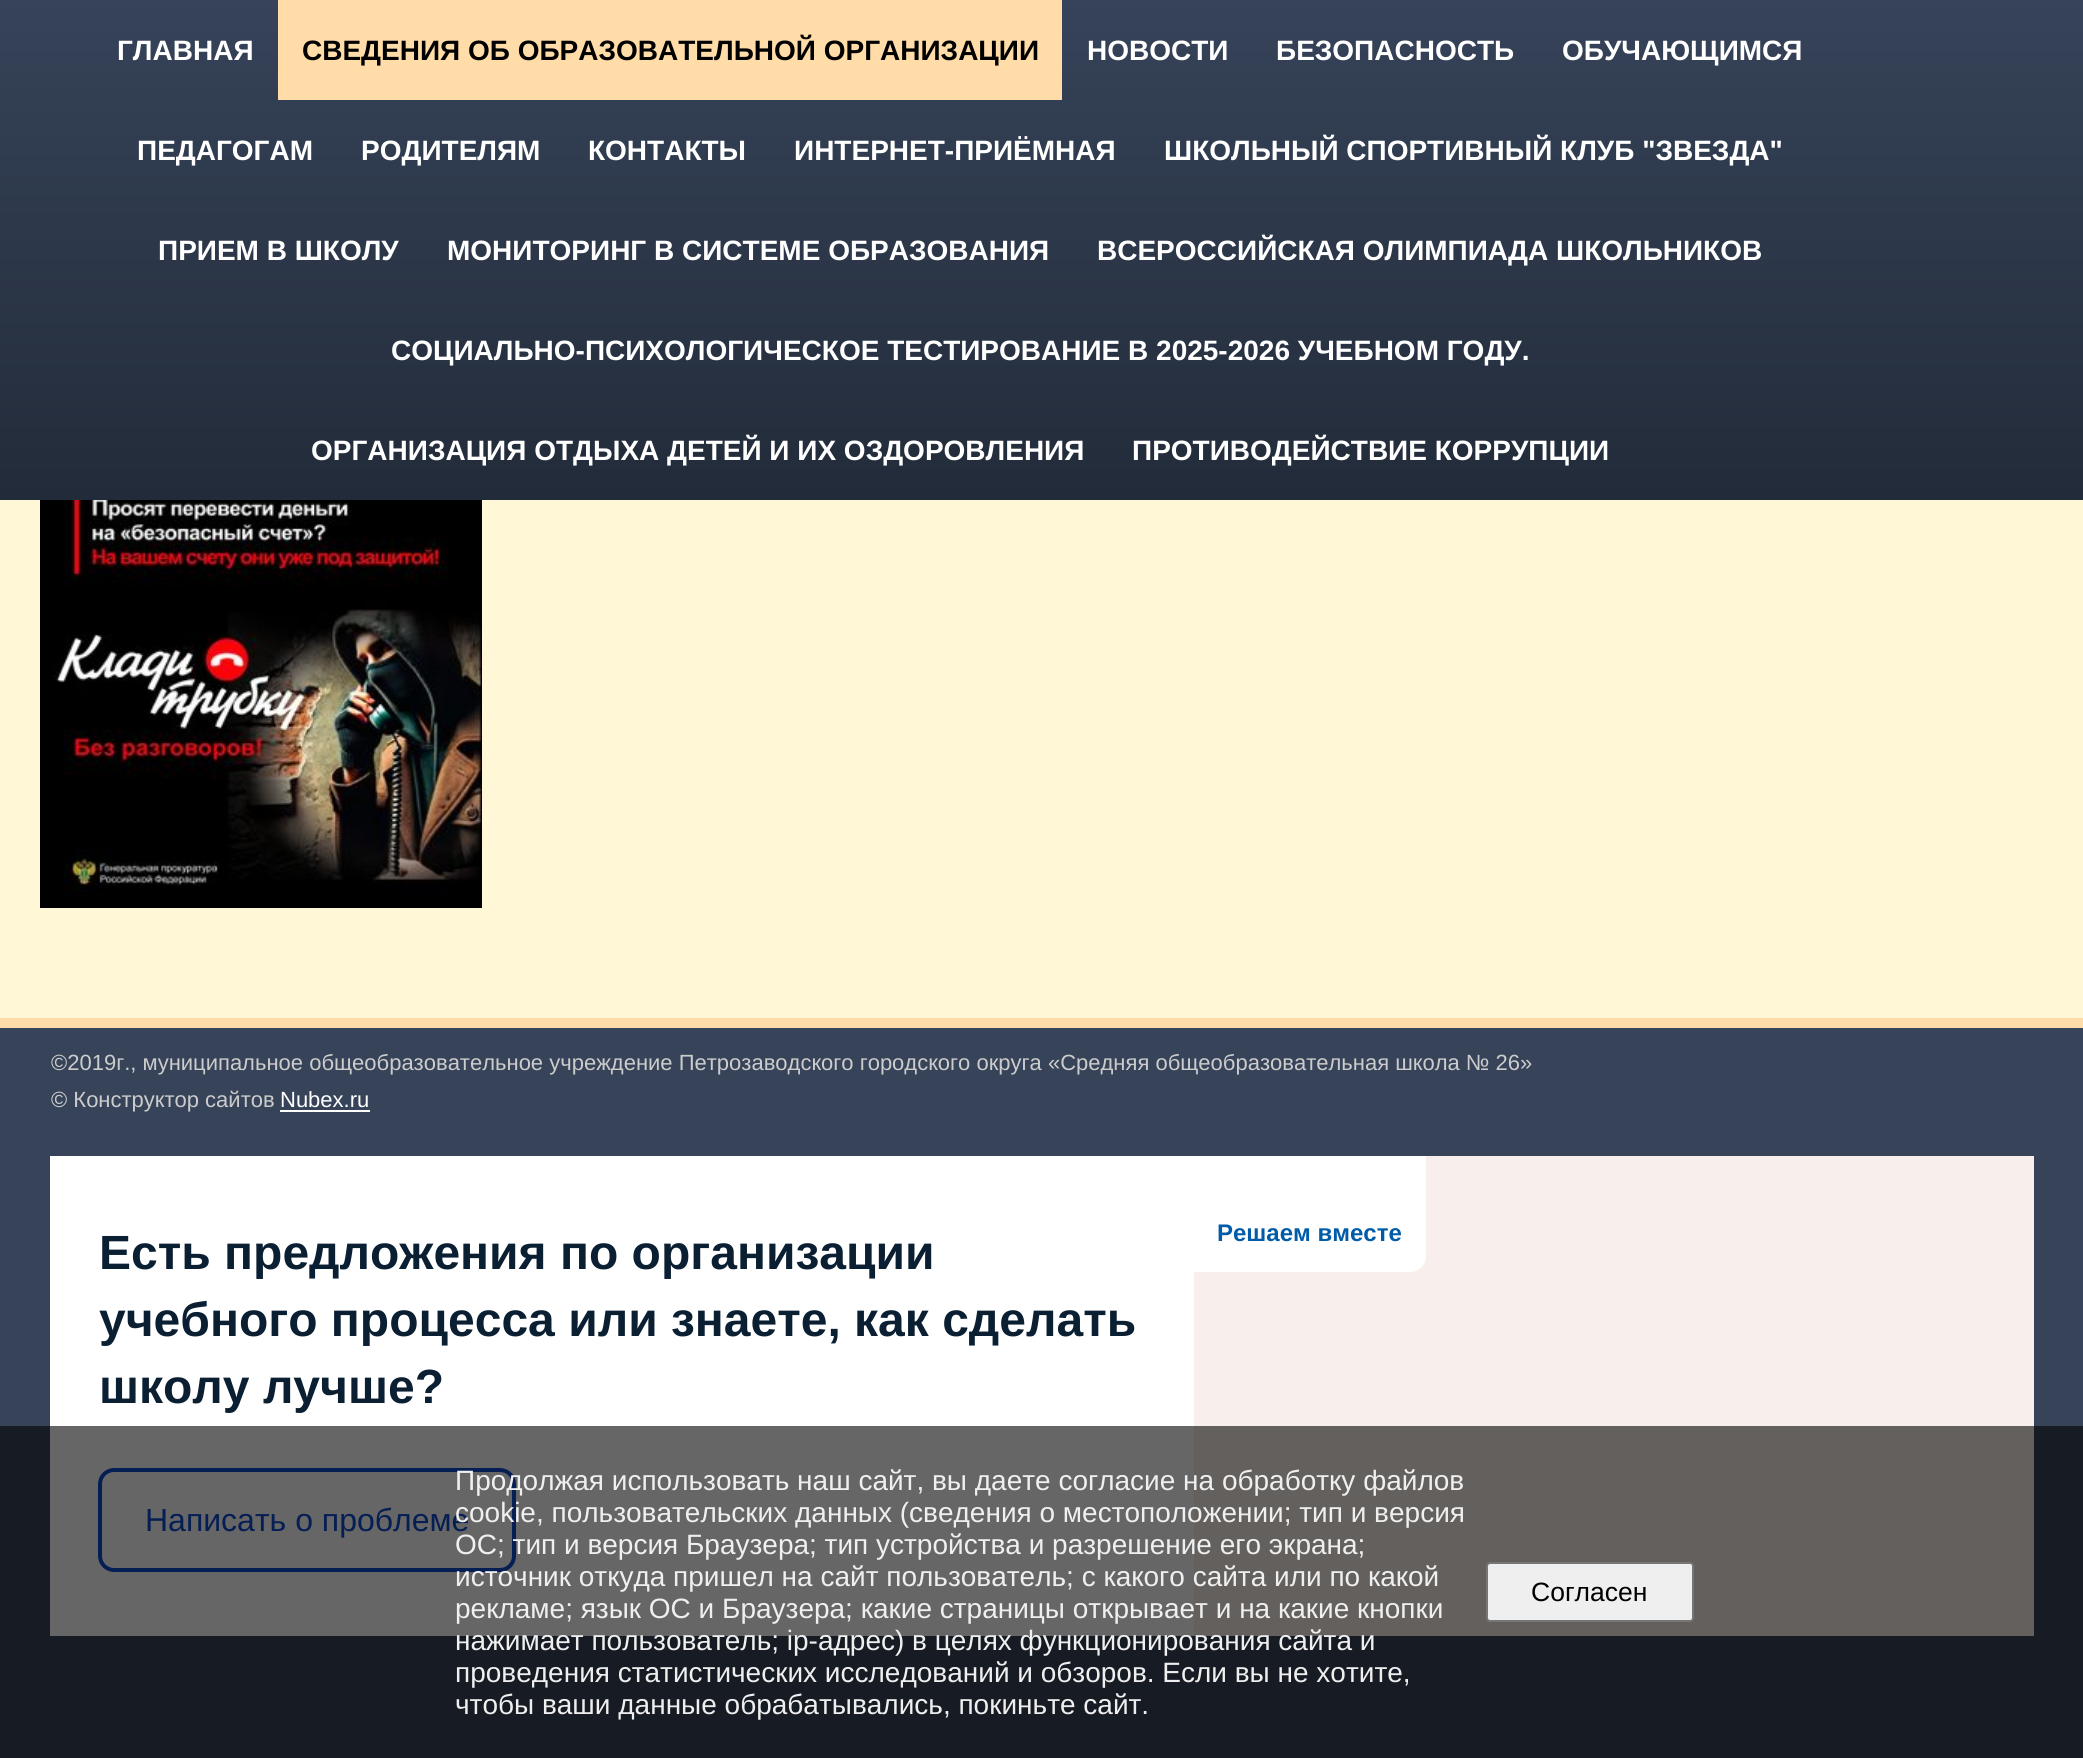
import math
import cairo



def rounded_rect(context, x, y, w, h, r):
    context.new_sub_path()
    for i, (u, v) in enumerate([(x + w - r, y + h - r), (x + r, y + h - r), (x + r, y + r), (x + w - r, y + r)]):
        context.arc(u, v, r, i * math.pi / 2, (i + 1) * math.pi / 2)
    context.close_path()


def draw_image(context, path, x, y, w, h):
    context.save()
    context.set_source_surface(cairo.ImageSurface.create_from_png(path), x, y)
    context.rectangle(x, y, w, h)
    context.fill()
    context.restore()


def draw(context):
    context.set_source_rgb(22 / 255, 27 / 255, 36 / 255)
    context.paint()
    gradient = cairo.LinearGradient(1042, 0, 1042, 500)
    gradient.add_color_stop_rgba(0, 54 / 255, 67 / 255, 89 / 255, 1)
    gradient.add_color_stop_rgba(1, 34 / 255, 43 / 255, 57 / 255, 1)
    context.set_source(gradient)
    context.rectangle(0, 0, 2083, 500)
    context.fill()
    context.set_source_rgb(1, 220 / 255, 168 / 255)
    context.rectangle(278, 0, 784, 100)
    context.fill()
    context.set_source_rgb(1, 247 / 255, 214 / 255)
    context.rectangle(0, 500, 2083, 518)
    context.fill()
    draw_image(context, "images/1.png", 40, 500, 442, 408)
    context.set_source_rgb(54 / 255, 67 / 255, 89 / 255)
    context.rectangle(0, 1028, 2083, 398)
    context.fill()
    context.set_source_rgb(1, 220 / 255, 168 / 255)
    context.rectangle(0, 1018, 2083, 10)
    context.fill()
    context.set_source_rgb(1, 1, 1)
    context.rectangle(280, 1110, 90, 2)
    context.fill()
    context.rectangle(50, 1156, 1144, 270)
    context.fill()
    context.set_source_rgb(102 / 255, 102 / 255, 102 / 255)
    context.rectangle(50, 1426, 1144, 210)
    context.fill()
    context.set_source_rgb(248 / 255, 239 / 255, 236 / 255)
    context.rectangle(1194, 1156, 840, 270)
    context.fill()
    context.set_source_rgb(99 / 255, 96 / 255, 94 / 255)
    context.rectangle(1194, 1426, 840, 210)
    context.fill()
    context.set_source_rgb(1, 1, 1)
    context.new_path()
    context.move_to(1194, 1156)
    context.line_to(1426, 1156)
    context.line_to(1426, 1256)
    context.curve_to(1426, 1265, 1419, 1272, 1410, 1272)
    context.line_to(1194, 1272)
    context.close_path()
    context.fill()
    rounded_rect(context, 100, 1470, 414, 100, 14)
    context.set_source_rgb(5 / 255, 30 / 255, 84 / 255)
    context.set_line_width(4)
    context.stroke()
    context.set_source_rgb(239 / 255, 239 / 255, 239 / 255)
    rounded_rect(context, 1487, 1563, 206, 58, 3)
    context.fill_preserve()
    context.set_source_rgb(118 / 255, 118 / 255, 118 / 255)
    context.set_line_width(2)
    context.stroke()
    context.select_font_face("Liberation Sans", cairo.FontSlant.NORMAL, cairo.FontWeight.BOLD)
    context.set_font_size(28)
    context.set_source_rgb(1, 1, 1)
    context.move_to(117, 60)
    context.show_text("ГЛАВНАЯ")
    context.set_source_rgb(0, 0, 0)
    context.move_to(302, 60)
    context.show_text("СВЕДЕНИЯ ОБ ОБРАЗОВАТЕЛЬНОЙ ОРГАНИЗАЦИИ")
    context.set_source_rgb(1, 1, 1)
    context.move_to(1087, 60)
    context.show_text("НОВОСТИ")
    context.move_to(1276, 60)
    context.show_text("БЕЗОПАСНОСТЬ")
    context.move_to(1562, 60)
    context.show_text("ОБУЧАЮЩИМСЯ")
    context.move_to(137, 160)
    context.show_text("ПЕДАГОГАМ")
    context.move_to(361, 160)
    context.show_text("РОДИТЕЛЯМ")
    context.move_to(588, 160)
    context.show_text("КОНТАКТЫ")
    context.move_to(794, 160)
    context.show_text("ИНТЕРНЕТ-ПРИЁМНАЯ")
    context.move_to(1164, 160)
    context.show_text("ШКОЛЬНЫЙ СПОРТИВНЫЙ КЛУБ \"ЗВЕЗДА\"")
    context.move_to(158, 260)
    context.show_text("ПРИЕМ В ШКОЛУ")
    context.move_to(447, 260)
    context.show_text("МОНИТОРИНГ В СИСТЕМЕ ОБРАЗОВАНИЯ")
    context.move_to(1097, 260)
    context.show_text("ВСЕРОССИЙСКАЯ ОЛИМПИАДА ШКОЛЬНИКОВ")
    context.move_to(391, 360)
    context.show_text("СОЦИАЛЬНО-ПСИХОЛОГИЧЕСКОЕ ТЕСТИРОВАНИЕ В 2025-2026 УЧЕБНОМ ГОДУ.")
    context.move_to(311, 460)
    context.show_text("ОРГАНИЗАЦИЯ ОТДЫХА ДЕТЕЙ И ИХ ОЗДОРОВЛЕНИЯ")
    context.move_to(1132, 460)
    context.show_text("ПРОТИВОДЕЙСТВИЕ КОРРУПЦИИ")
    context.select_font_face("Liberation Sans")
    context.set_font_size(22)
    context.set_source_rgb(204 / 255, 204 / 255, 204 / 255)
    context.move_to(51, 1070)
    context.show_text("©2019г., муниципальное общеобразовательное учреждение Петрозаводского городского округа «Средняя общеобразовательная школа № 26»")
    context.move_to(51, 1107)
    context.show_text("© Конструктор сайтов")
    context.set_source_rgb(1, 1, 1)
    context.move_to(280, 1107)
    context.show_text("Nubex.ru")
    context.select_font_face("Liberation Sans", cairo.FontSlant.NORMAL, cairo.FontWeight.BOLD)
    context.set_font_size(24)
    context.set_source_rgb(0, 92 / 255, 169 / 255)
    context.move_to(1217, 1241)
    context.show_text("Решаем вместе")
    context.set_font_size(48)
    context.set_source_rgb(11 / 255, 31 / 255, 51 / 255)
    context.move_to(99, 1269)
    context.show_text("Есть предложения по организации")
    context.move_to(99, 1336)
    context.show_text("учебного процесса или знаете, как сделать")
    context.move_to(99, 1403)
    context.show_text("школу лучше?")
    context.select_font_face("Liberation Sans")
    context.set_font_size(32)
    context.set_source_rgb(5 / 255, 30 / 255, 84 / 255)
    context.move_to(145, 1531)
    context.show_text("Написать о проблеме")
    context.set_font_size(28)
    context.set_source_rgb(239 / 255, 239 / 255, 239 / 255)
    context.move_to(455, 1490)
    context.show_text("Продолжая использовать наш сайт, вы даете согласие на обработку файлов")
    context.move_to(455, 1522)
    context.show_text("cookie, пользовательских данных (сведения о местоположении; тип и версия")
    context.move_to(455, 1554)
    context.show_text("ОС; тип и версия Браузера; тип устройства и разрешение его экрана;")
    context.move_to(455, 1586)
    context.show_text("источник откуда пришел на сайт пользователь; с какого сайта или по какой")
    context.move_to(455, 1618)
    context.show_text("рекламе; язык ОС и Браузера; какие страницы открывает и на какие кнопки")
    context.move_to(455, 1650)
    context.show_text("нажимает пользователь; ip-адрес) в целях функционирования сайта и")
    context.move_to(455, 1682)
    context.show_text("проведения статистических исследований и обзоров. Если вы не хотите,")
    context.move_to(455, 1714)
    context.show_text("чтобы ваши данные обрабатывались, покиньте сайт.")
    context.set_font_size(26.5)
    context.set_source_rgb(0, 0, 0)
    context.move_to(1531, 1601)
    context.show_text("Согласен")


surface = cairo.ImageSurface(cairo.Format.RGB24, 2083, 1758)
context = cairo.Context(surface)
options = cairo.FontOptions()
options.set_hint_metrics(cairo.HintMetrics.OFF)
options.set_hint_style(cairo.HintStyle.NONE)
context.set_font_options(options)
context.set_miter_limit(4)
draw(context)
surface.write_to_png("out.png")
